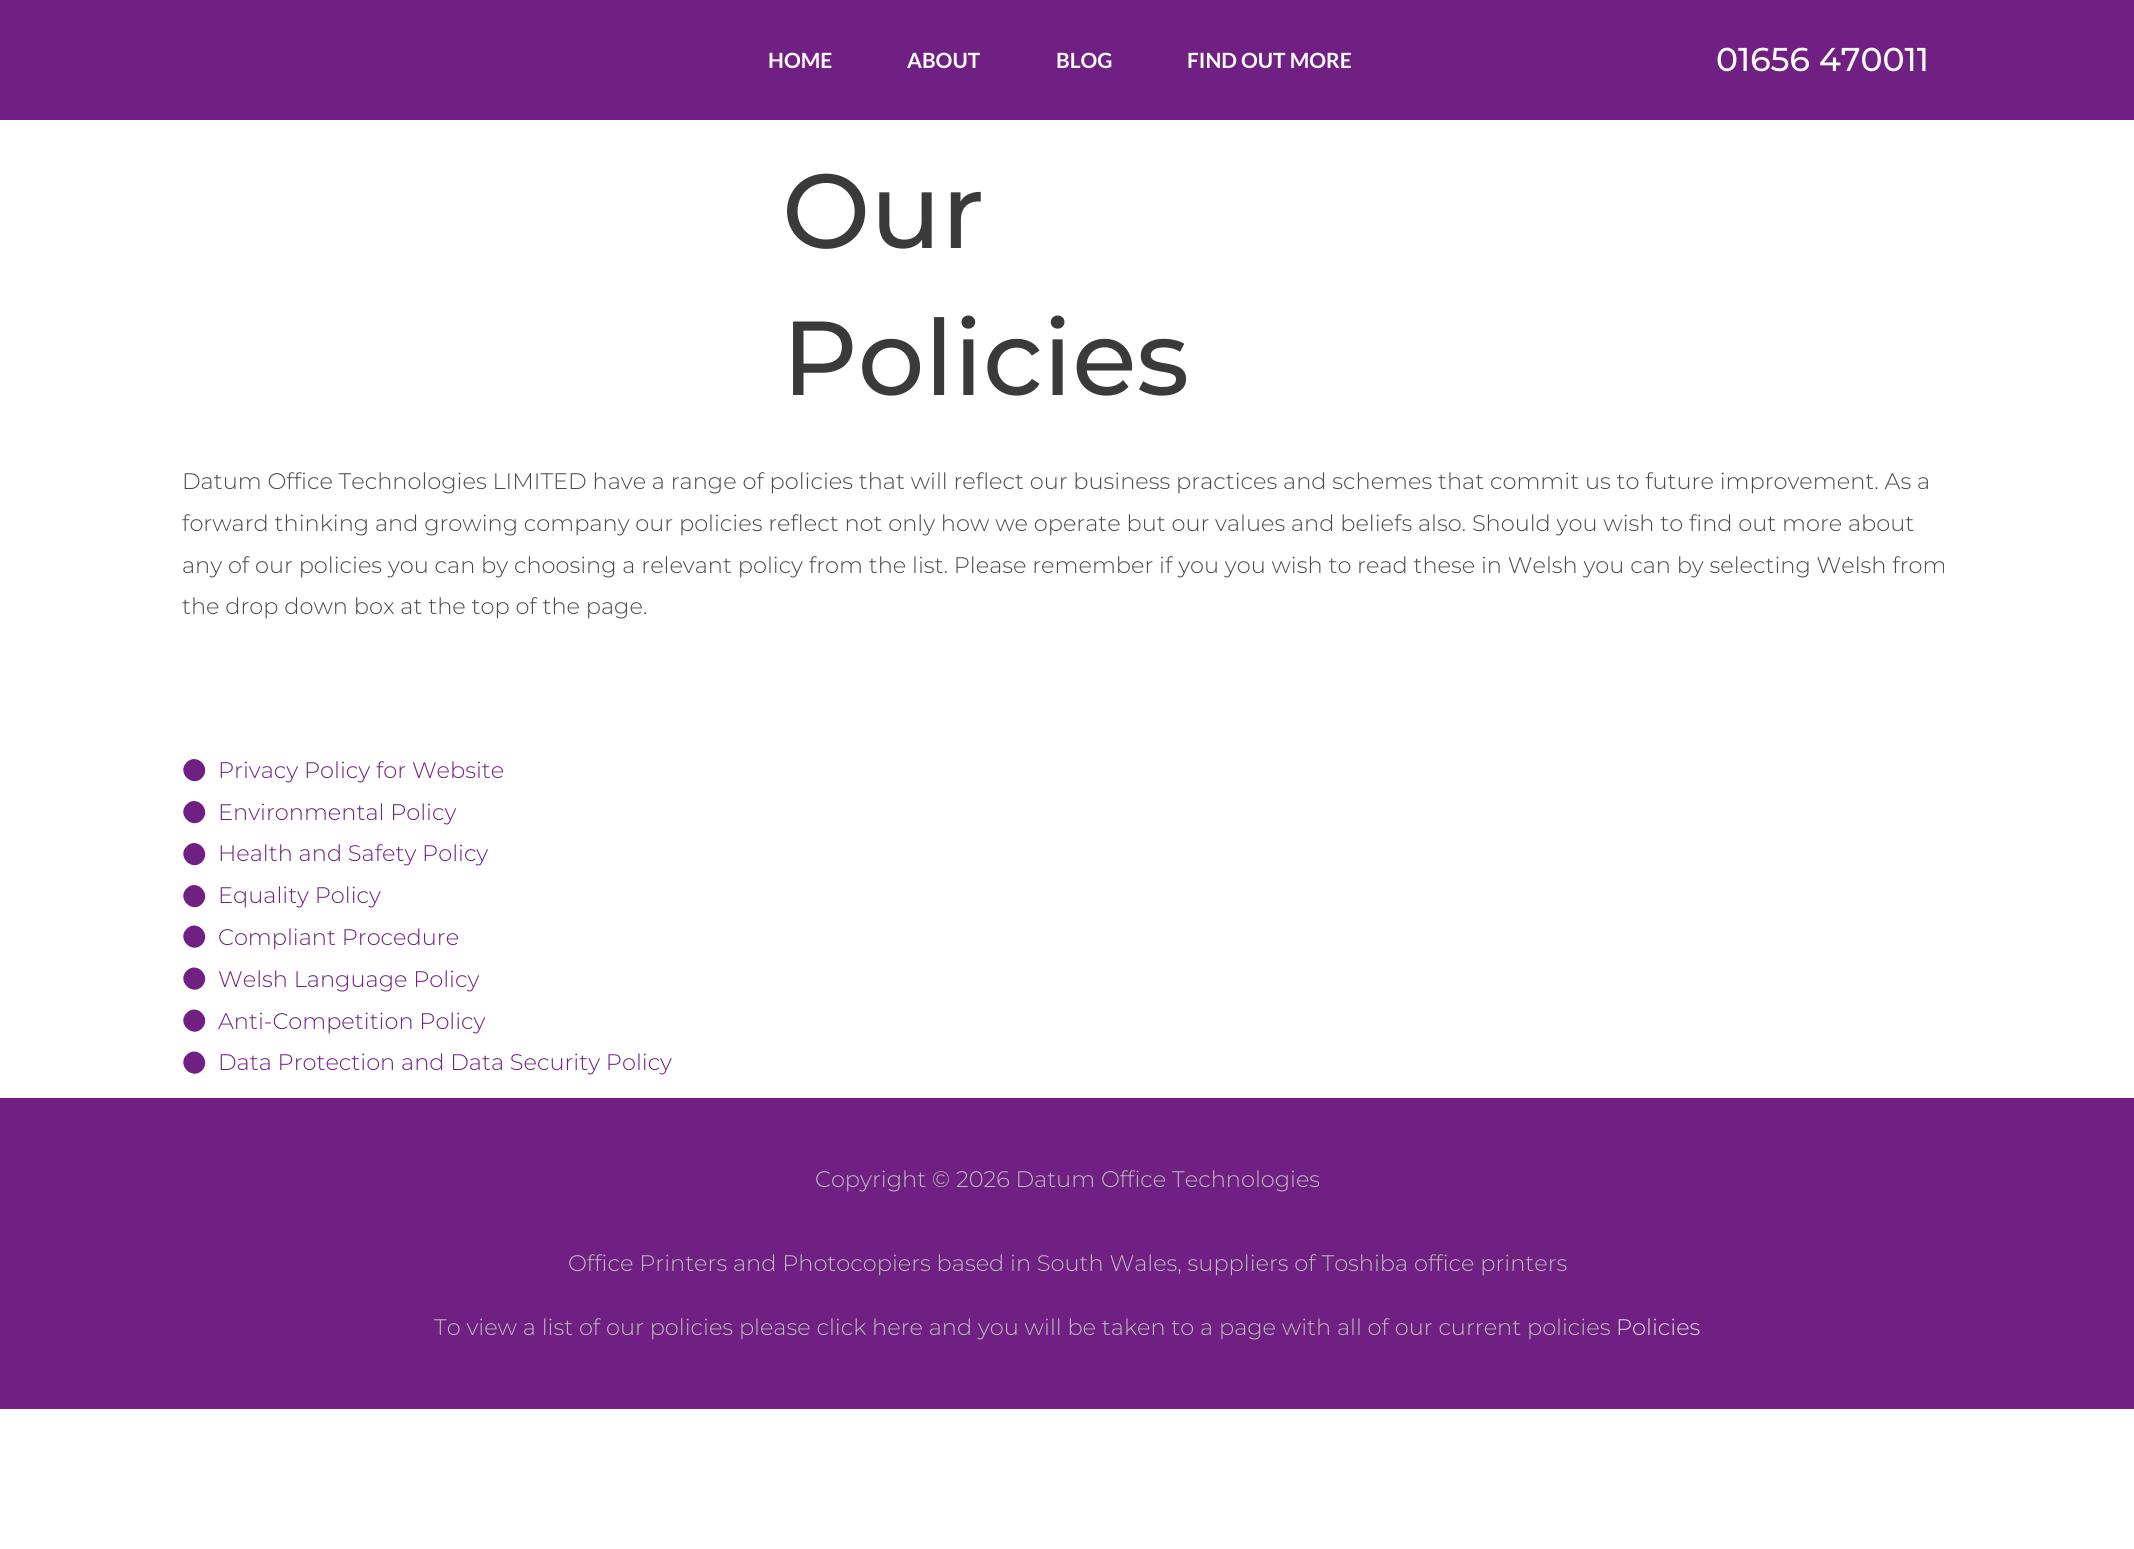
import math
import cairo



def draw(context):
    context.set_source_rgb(1, 1, 1)
    context.paint()
    context.set_source_rgb(112 / 255, 32 / 255, 130 / 255)
    context.rectangle(0, 0, 2134, 120)
    context.fill()
    context.new_path()
    context.move_to(186.5, 762.5)
    context.curve_to(196.5, 752, 212, 767.5, 202, 778)
    context.curve_to(192, 788, 176.5, 772.5, 186.5, 762.5)
    context.close_path()
    context.fill()
    context.new_path()
    context.move_to(186.5, 804.5)
    context.curve_to(196.5, 794, 212, 809.5, 202, 820)
    context.curve_to(192, 830, 176.5, 814.5, 186.5, 804.5)
    context.close_path()
    context.fill()
    context.new_path()
    context.move_to(186.5, 846.5)
    context.curve_to(196.5, 836, 212, 851.5, 202, 862)
    context.curve_to(192, 872, 176.5, 856.5, 186.5, 846.5)
    context.close_path()
    context.fill()
    context.new_path()
    context.move_to(186.5, 888.5)
    context.curve_to(196.5, 878, 212, 893.5, 202, 904)
    context.curve_to(192, 914, 176.5, 898.5, 186.5, 888.5)
    context.close_path()
    context.fill()
    context.new_path()
    context.move_to(186.5, 929)
    context.curve_to(196.5, 918.5, 212, 934, 202, 944.5)
    context.curve_to(192, 954.5, 176.5, 939, 186.5, 929)
    context.close_path()
    context.fill()
    context.new_path()
    context.move_to(186.5, 971)
    context.curve_to(196.5, 960.5, 212, 976, 202, 986.5)
    context.curve_to(192, 996.5, 176.5, 981, 186.5, 971)
    context.close_path()
    context.fill()
    context.new_path()
    context.move_to(186.5, 1013)
    context.curve_to(196.5, 1002.5, 212, 1018, 202, 1028.5)
    context.curve_to(192, 1038.5, 176.5, 1023, 186.5, 1013)
    context.close_path()
    context.fill()
    context.new_path()
    context.move_to(186.5, 1055)
    context.curve_to(196.5, 1044.5, 212, 1060, 202, 1070.5)
    context.curve_to(192, 1080.5, 176.5, 1065, 186.5, 1055)
    context.close_path()
    context.fill()
    context.rectangle(0, 1098, 2134, 311)
    context.fill()
    context.select_font_face("Lato", cairo.FontSlant.NORMAL, cairo.FontWeight.BOLD)
    context.set_font_size(21)
    context.set_source_rgb(252 / 255, 252 / 255, 252 / 255)
    context.move_to(768, 68)
    context.show_text("HOME")
    context.move_to(907, 68)
    context.show_text("ABOUT")
    context.move_to(1056, 68)
    context.show_text("BLOG")
    context.move_to(1187, 68)
    context.show_text("FIND OUT MORE")
    context.select_font_face("Montserrat Medium")
    context.set_font_size(33)
    context.move_to(1716, 71)
    context.show_text("01656 470011")
    context.set_font_size(105)
    context.set_source_rgb(58 / 255, 58 / 255, 58 / 255)
    context.move_to(782, 248)
    context.show_text("Our")
    context.move_to(782, 395)
    context.show_text("Policies")
    context.select_font_face("Montserrat Light")
    context.set_font_size(22.5)
    context.set_source_rgb(73 / 255, 73 / 255, 73 / 255)
    context.move_to(182, 489)
    context.show_text("Datum Office Technologies LIMITED have a range of policies that will reflect our business practices and schemes that commit us to future improvement. As a")
    context.move_to(182, 531)
    context.show_text("forward thinking and growing company our policies reflect not only how we operate but our values and beliefs also. Should you wish to find out more about")
    context.move_to(182, 573)
    context.show_text("any of our policies you can by choosing a relevant policy from the list. Please remember if you you wish to read these in Welsh you can by selecting Welsh from")
    context.move_to(182, 614)
    context.show_text("the drop down box at the top of the page.")
    context.set_source_rgb(112 / 255, 32 / 255, 130 / 255)
    context.move_to(218, 778)
    context.show_text("Privacy Policy for Website")
    context.move_to(218, 820)
    context.show_text("Environmental Policy")
    context.move_to(218, 861)
    context.show_text("Health and Safety Policy")
    context.move_to(218, 903)
    context.show_text("Equality Policy")
    context.move_to(218, 945)
    context.show_text("Compliant Procedure")
    context.move_to(218, 987)
    context.show_text("Welsh Language Policy")
    context.move_to(218, 1029)
    context.show_text("Anti-Competition Policy")
    context.move_to(218, 1070)
    context.show_text("Data Protection and Data Security Policy")
    context.set_source_rgb(188 / 255, 188 / 255, 188 / 255)
    context.move_to(815, 1187)
    context.show_text("Copyright © 2026 Datum Office Technologies")
    context.move_to(568, 1271)
    context.show_text("Office Printers and Photocopiers based in South Wales, suppliers of Toshiba office printers")
    context.move_to(434, 1335)
    context.show_text("To view a list of our policies please click here and you will be taken to a page with all of our current policies")
    context.set_source_rgb(221 / 255, 221 / 255, 221 / 255)
    context.move_to(1616, 1335)
    context.show_text("Policies")


surface = cairo.ImageSurface(cairo.Format.RGB24, 2134, 1549)
context = cairo.Context(surface)
options = cairo.FontOptions()
options.set_hint_metrics(cairo.HintMetrics.OFF)
options.set_hint_style(cairo.HintStyle.NONE)
context.set_font_options(options)
context.set_miter_limit(4)
draw(context)
surface.write_to_png("out.png")
